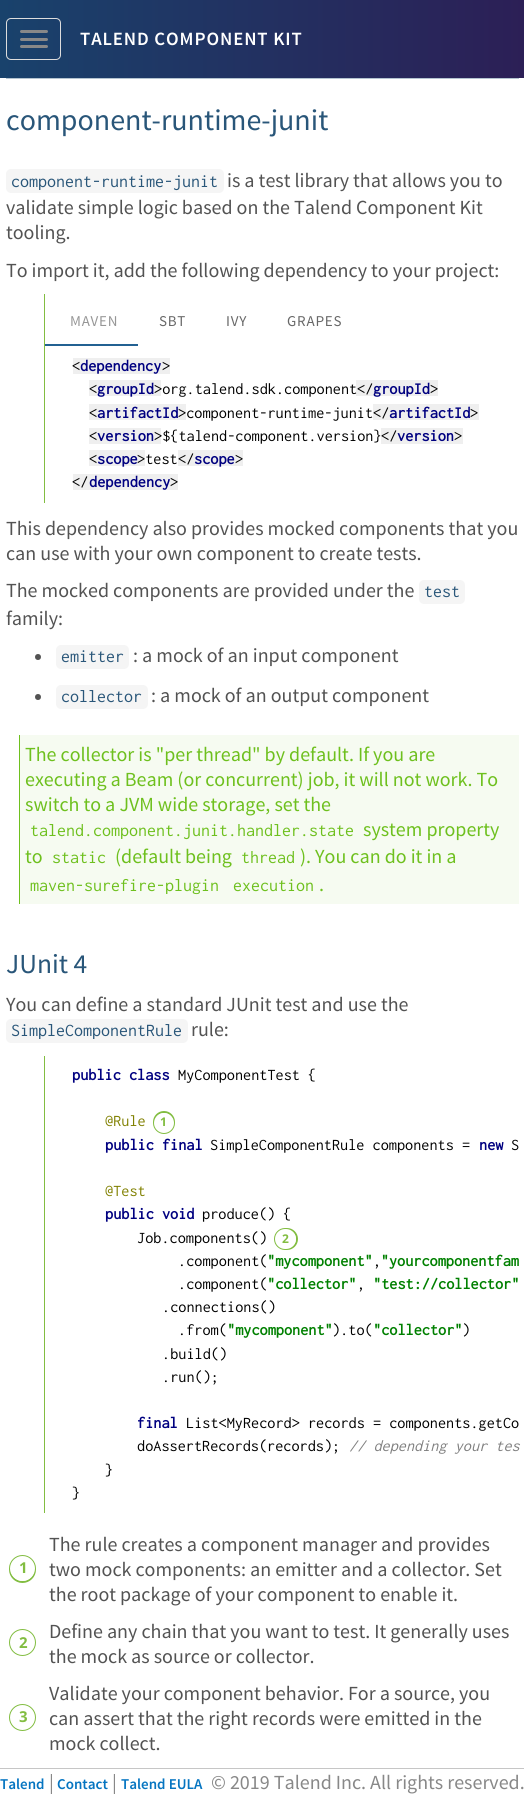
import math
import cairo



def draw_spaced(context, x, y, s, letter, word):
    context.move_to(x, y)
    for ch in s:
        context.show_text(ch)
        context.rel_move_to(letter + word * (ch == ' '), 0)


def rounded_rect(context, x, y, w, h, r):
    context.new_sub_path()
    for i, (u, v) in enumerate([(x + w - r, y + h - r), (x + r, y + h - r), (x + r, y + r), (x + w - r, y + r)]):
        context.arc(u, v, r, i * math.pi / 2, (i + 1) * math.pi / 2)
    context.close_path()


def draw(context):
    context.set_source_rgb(1, 1, 1)
    context.paint()
    gradient = cairo.LinearGradient(0, 39, 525, 39)
    gradient.add_color_stop_rgba(0, 25 / 255, 66 / 255, 108 / 255, 1)
    gradient.add_color_stop_rgba(1, 44 / 255, 31 / 255, 86 / 255, 1)
    context.set_source(gradient)
    context.rectangle(0, 0, 524, 78)
    context.fill()
    rounded_rect(context, 6.5, 18.5, 54, 41, 4.5)
    context.set_source_rgb(221 / 255, 221 / 255, 221 / 255)
    context.set_line_width(1)
    context.stroke()
    context.set_source_rgb(136 / 255, 136 / 255, 136 / 255)
    rounded_rect(context, 20, 30, 28, 3, 1.5)
    context.fill()
    rounded_rect(context, 20, 38, 28, 3, 1.5)
    context.fill()
    rounded_rect(context, 20, 45, 28, 3, 1.5)
    context.fill()
    context.set_source_rgb(180 / 255, 196 / 255, 208 / 255)
    context.rectangle(6, 78, 513, 1)
    context.fill()
    context.set_source_rgb(245 / 255, 245 / 255, 245 / 255)
    rounded_rect(context, 6, 169, 218, 24, 5)
    context.fill()
    context.set_source_rgb(130 / 255, 189 / 255, 65 / 255)
    context.rectangle(44, 294, 1, 209)
    context.fill()
    context.set_source_rgb(35 / 255, 97 / 255, 146 / 255)
    context.rectangle(45, 344, 93, 2)
    context.fill()
    context.set_source_rgb(239 / 255, 239 / 255, 239 / 255)
    context.rectangle(73, 358, 97, 16)
    context.fill()
    context.rectangle(89, 380, 72, 16)
    context.fill()
    context.rectangle(356, 380, 82, 16)
    context.fill()
    context.rectangle(89, 404, 97, 16)
    context.fill()
    context.rectangle(373, 404, 106, 16)
    context.fill()
    context.rectangle(89, 428, 72, 16)
    context.fill()
    context.rectangle(381, 428, 82, 16)
    context.fill()
    context.rectangle(89, 450, 56, 16)
    context.fill()
    context.rectangle(178, 450, 65, 16)
    context.fill()
    context.rectangle(73, 474, 105, 16)
    context.fill()
    context.set_source_rgb(245 / 255, 245 / 255, 245 / 255)
    rounded_rect(context, 419, 580, 46, 24, 5)
    context.fill()
    context.set_source_rgb(83 / 255, 83 / 255, 83 / 255)
    context.arc(38, 657, 3, 0, 2 * math.pi)
    context.fill()
    context.set_source_rgb(245 / 255, 245 / 255, 245 / 255)
    rounded_rect(context, 56, 645, 73, 24, 5)
    context.fill()
    context.set_source_rgb(83 / 255, 83 / 255, 83 / 255)
    context.arc(38, 697, 3, 0, 2 * math.pi)
    context.fill()
    context.set_source_rgb(245 / 255, 245 / 255, 245 / 255)
    rounded_rect(context, 56, 685, 92, 24, 5)
    context.fill()
    context.set_source_rgb(246 / 255, 251 / 255, 241 / 255)
    context.rectangle(20, 735, 499, 169)
    context.fill()
    context.set_source_rgb(110 / 255, 192 / 255, 30 / 255)
    context.rectangle(19, 735, 1, 169)
    context.fill()
    context.set_source_rgb(245 / 255, 245 / 255, 245 / 255)
    rounded_rect(context, 6, 1019, 182, 24, 5)
    context.fill()
    context.set_source_rgb(130 / 255, 189 / 255, 65 / 255)
    context.rectangle(44, 1056, 1, 457)
    context.fill()
    rounded_rect(context, 154, 1112, 20, 21, 10)
    context.set_line_width(2)
    context.stroke()
    context.set_source_rgb(1, 1, 1)
    context.arc(164, 1123, 10, 0, 2 * math.pi)
    context.fill()
    rounded_rect(context, 275, 1229, 22, 20, 10)
    context.set_source_rgb(130 / 255, 189 / 255, 65 / 255)
    context.stroke()
    context.set_source_rgb(1, 1, 1)
    rounded_rect(context, 275, 1229, 21, 20, 10)
    context.fill()
    rounded_rect(context, 10, 1556, 25, 26, 12.5)
    context.set_source_rgb(130 / 255, 189 / 255, 65 / 255)
    context.stroke()
    context.set_source_rgb(1, 1, 1)
    context.arc(22.5, 1568.5, 12.5, 0, 2 * math.pi)
    context.fill()
    context.arc(22.5, 1642.5, 12.5, 0, 2 * math.pi)
    context.set_source_rgb(130 / 255, 189 / 255, 65 / 255)
    context.stroke()
    context.set_source_rgb(1, 1, 1)
    context.arc(22.5, 1642.5, 12.5, 0, 2 * math.pi)
    context.fill()
    context.arc(22.5, 1717.5, 12.5, 0, 2 * math.pi)
    context.set_source_rgb(130 / 255, 189 / 255, 65 / 255)
    context.stroke()
    context.set_source_rgb(1, 1, 1)
    context.arc(22.5, 1717.5, 12.5, 0, 2 * math.pi)
    context.fill()
    context.set_source_rgb(198 / 255, 198 / 255, 198 / 255)
    context.rectangle(0, 1768, 524, 1)
    context.fill()
    context.select_font_face("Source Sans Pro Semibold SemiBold")
    context.set_font_size(18.75)
    context.set_source_rgb(1, 1, 1)
    draw_spaced(context, 80, 45, "TALEND COMPONENT KIT", 0.9, 0)
    context.select_font_face("Source Sans Pro")
    context.set_font_size(30)
    context.set_source_rgb(41 / 255, 86 / 255, 121 / 255)
    context.move_to(6, 130)
    context.show_text("component-runtime-junit")
    context.select_font_face("Inconsolata")
    context.set_font_size(18)
    context.move_to(11, 187)
    context.show_text("component-runtime-junit")
    context.select_font_face("Source Sans Pro")
    context.set_font_size(20)
    context.set_source_rgb(83 / 255, 83 / 255, 83 / 255)
    context.move_to(227, 187)
    context.show_text("is a test library that allows you to")
    context.move_to(6, 214)
    context.show_text("validate simple logic based on the Talend Component Kit")
    context.move_to(6, 239)
    context.show_text("tooling.")
    context.move_to(6, 277)
    context.show_text("To import it, add the following dependency to your project:")
    context.set_font_size(15)
    context.set_source_rgb(150 / 255, 150 / 255, 150 / 255)
    draw_spaced(context, 70, 326, "MAVEN", 0.75, 0)
    context.set_source_rgb(103 / 255, 103 / 255, 103 / 255)
    draw_spaced(context, 159, 326, "SBT", 0.75, 0)
    draw_spaced(context, 226, 326, "IVY", 0.75, 0)
    draw_spaced(context, 287, 326, "GRAPES", 0.75, 0)
    context.select_font_face("Inconsolata")
    context.set_font_size(16.25)
    context.set_source_rgb(0, 0, 0)
    context.move_to(72, 371)
    context.show_text("<")
    context.select_font_face("Inconsolata", cairo.FontSlant.NORMAL, cairo.FontWeight.BOLD)
    context.set_source_rgb(0, 0, 128 / 255)
    context.move_to(80, 371)
    context.show_text("dependency")
    context.select_font_face("Inconsolata")
    context.set_source_rgb(0, 0, 0)
    context.move_to(162, 371)
    context.show_text(">")
    context.move_to(89, 394)
    context.show_text("<")
    context.select_font_face("Inconsolata", cairo.FontSlant.NORMAL, cairo.FontWeight.BOLD)
    context.set_source_rgb(0, 0, 128 / 255)
    context.move_to(97, 394)
    context.show_text("groupId")
    context.select_font_face("Inconsolata")
    context.set_source_rgb(0, 0, 0)
    context.move_to(154, 394)
    context.show_text(">org.talend.sdk.component")
    context.move_to(357, 394)
    context.show_text("</")
    context.select_font_face("Inconsolata", cairo.FontSlant.NORMAL, cairo.FontWeight.BOLD)
    context.set_source_rgb(0, 0, 128 / 255)
    context.move_to(373, 394)
    context.show_text("groupId")
    context.select_font_face("Inconsolata")
    context.set_source_rgb(0, 0, 0)
    context.move_to(430, 394)
    context.show_text(">")
    context.move_to(89, 418)
    context.show_text("<")
    context.select_font_face("Inconsolata", cairo.FontSlant.NORMAL, cairo.FontWeight.BOLD)
    context.set_source_rgb(0, 0, 128 / 255)
    context.move_to(97, 418)
    context.show_text("artifactId")
    context.select_font_face("Inconsolata")
    context.set_source_rgb(0, 0, 0)
    context.move_to(178, 418)
    context.show_text(">component-runtime-junit")
    context.move_to(373, 418)
    context.show_text("</")
    context.select_font_face("Inconsolata", cairo.FontSlant.NORMAL, cairo.FontWeight.BOLD)
    context.set_source_rgb(0, 0, 128 / 255)
    context.move_to(389, 418)
    context.show_text("artifactId")
    context.select_font_face("Inconsolata")
    context.set_source_rgb(0, 0, 0)
    context.move_to(470, 418)
    context.show_text(">")
    context.move_to(89, 441)
    context.show_text("<")
    context.select_font_face("Inconsolata", cairo.FontSlant.NORMAL, cairo.FontWeight.BOLD)
    context.set_source_rgb(0, 0, 128 / 255)
    context.move_to(97, 441)
    context.show_text("version")
    context.select_font_face("Inconsolata")
    context.set_source_rgb(0, 0, 0)
    context.move_to(154, 441)
    context.show_text(">${talend-component.version}")
    context.move_to(381, 441)
    context.show_text("</")
    context.select_font_face("Inconsolata", cairo.FontSlant.NORMAL, cairo.FontWeight.BOLD)
    context.set_source_rgb(0, 0, 128 / 255)
    context.move_to(397, 441)
    context.show_text("version")
    context.select_font_face("Inconsolata")
    context.set_source_rgb(0, 0, 0)
    context.move_to(454, 441)
    context.show_text(">")
    context.move_to(89, 464)
    context.show_text("<")
    context.select_font_face("Inconsolata", cairo.FontSlant.NORMAL, cairo.FontWeight.BOLD)
    context.set_source_rgb(0, 0, 128 / 255)
    context.move_to(97, 464)
    context.show_text("scope")
    context.select_font_face("Inconsolata")
    context.set_source_rgb(0, 0, 0)
    context.move_to(137, 464)
    context.show_text(">test")
    context.move_to(178, 464)
    context.show_text("</")
    context.select_font_face("Inconsolata", cairo.FontSlant.NORMAL, cairo.FontWeight.BOLD)
    context.set_source_rgb(0, 0, 128 / 255)
    context.move_to(194, 464)
    context.show_text("scope")
    context.select_font_face("Inconsolata")
    context.set_source_rgb(0, 0, 0)
    context.move_to(235, 464)
    context.show_text(">")
    context.move_to(72, 487)
    context.show_text("</")
    context.select_font_face("Inconsolata", cairo.FontSlant.NORMAL, cairo.FontWeight.BOLD)
    context.set_source_rgb(0, 0, 128 / 255)
    context.move_to(89, 487)
    context.show_text("dependency")
    context.select_font_face("Inconsolata")
    context.set_source_rgb(0, 0, 0)
    context.move_to(170, 487)
    context.show_text(">")
    context.select_font_face("Source Sans Pro")
    context.set_font_size(20)
    context.set_source_rgb(83 / 255, 83 / 255, 83 / 255)
    context.move_to(6, 535)
    context.show_text("This dependency also provides mocked components that you")
    context.move_to(6, 560)
    context.show_text("can use with your own component to create tests.")
    context.move_to(6, 597)
    context.show_text("The mocked components are provided under the")
    context.select_font_face("Inconsolata")
    context.set_font_size(18)
    context.set_source_rgb(41 / 255, 86 / 255, 121 / 255)
    context.move_to(424, 597)
    context.show_text("test")
    context.select_font_face("Source Sans Pro")
    context.set_font_size(20)
    context.set_source_rgb(83 / 255, 83 / 255, 83 / 255)
    context.move_to(6, 625)
    context.show_text("family:")
    context.select_font_face("Inconsolata")
    context.set_font_size(18)
    context.set_source_rgb(41 / 255, 86 / 255, 121 / 255)
    context.move_to(61, 662)
    context.show_text("emitter")
    context.select_font_face("Source Sans Pro")
    context.set_font_size(20)
    context.set_source_rgb(83 / 255, 83 / 255, 83 / 255)
    context.move_to(133, 662)
    context.show_text(": a mock of an input component")
    context.select_font_face("Inconsolata")
    context.set_font_size(18)
    context.set_source_rgb(41 / 255, 86 / 255, 121 / 255)
    context.move_to(61, 702)
    context.show_text("collector")
    context.select_font_face("Source Sans Pro")
    context.set_font_size(20)
    context.set_source_rgb(83 / 255, 83 / 255, 83 / 255)
    context.move_to(151, 702)
    context.show_text(": a mock of an output component")
    context.set_source_rgb(110 / 255, 192 / 255, 30 / 255)
    context.move_to(25, 761)
    context.show_text("The collector is \"per thread\" by default. If you are")
    context.move_to(25, 786)
    context.show_text("executing a Beam (or concurrent) job, it will not work. To")
    context.move_to(25, 811)
    context.show_text("switch to a JVM wide storage, set the")
    context.select_font_face("Inconsolata")
    context.set_font_size(18)
    context.move_to(30, 836)
    context.show_text("talend.component.junit.handler.state")
    context.select_font_face("Source Sans Pro")
    context.set_font_size(20)
    context.move_to(363, 836)
    context.show_text("system property")
    context.move_to(25, 863)
    context.show_text("to")
    context.select_font_face("Inconsolata")
    context.set_font_size(18)
    context.move_to(52, 863)
    context.show_text("static")
    context.select_font_face("Source Sans Pro")
    context.set_font_size(20)
    context.move_to(115, 863)
    context.show_text("(default being")
    context.select_font_face("Inconsolata")
    context.set_font_size(18)
    context.move_to(241, 863)
    context.show_text("thread")
    context.select_font_face("Source Sans Pro")
    context.set_font_size(20)
    context.move_to(300, 863)
    context.show_text("). You can do it in a")
    context.select_font_face("Inconsolata")
    context.set_font_size(18)
    context.move_to(30, 891)
    context.show_text("maven-surefire-plugin")
    context.move_to(233, 891)
    context.show_text("execution")
    context.select_font_face("Source Sans Pro")
    context.set_font_size(20)
    context.move_to(319, 891)
    context.show_text(".")
    context.set_font_size(27.5)
    context.set_source_rgb(41 / 255, 86 / 255, 121 / 255)
    context.move_to(6, 973)
    context.show_text("JUnit 4")
    context.set_font_size(20)
    context.set_source_rgb(83 / 255, 83 / 255, 83 / 255)
    context.move_to(6, 1011)
    context.show_text("You can define a standard JUnit test and use the")
    context.select_font_face("Inconsolata")
    context.set_font_size(18)
    context.set_source_rgb(41 / 255, 86 / 255, 121 / 255)
    context.move_to(11, 1036)
    context.show_text("SimpleComponentRule")
    context.select_font_face("Source Sans Pro")
    context.set_font_size(20)
    context.set_source_rgb(83 / 255, 83 / 255, 83 / 255)
    context.move_to(191, 1036)
    context.show_text("rule:")
    context.select_font_face("Inconsolata", cairo.FontSlant.NORMAL, cairo.FontWeight.BOLD)
    context.set_font_size(16.25)
    context.set_source_rgb(0, 0, 128 / 255)
    context.move_to(72, 1080)
    context.show_text("public class")
    context.select_font_face("Inconsolata")
    context.set_source_rgb(0, 0, 0)
    context.move_to(178, 1080)
    context.show_text("MyComponentTest {")
    context.set_source_rgb(128 / 255, 128 / 255, 0)
    context.move_to(105, 1126)
    context.show_text("@Rule")
    context.select_font_face("Open Sans", cairo.FontSlant.NORMAL, cairo.FontWeight.BOLD)
    context.set_font_size(12)
    context.set_source_rgb(130 / 255, 189 / 255, 65 / 255)
    context.move_to(160, 1126)
    context.show_text("1")
    context.select_font_face("Inconsolata", cairo.FontSlant.NORMAL, cairo.FontWeight.BOLD)
    context.set_font_size(16.25)
    context.set_source_rgb(0, 0, 128 / 255)
    context.move_to(105, 1150)
    context.show_text("public final")
    context.select_font_face("Inconsolata")
    context.set_source_rgb(0, 0, 0)
    context.move_to(210, 1150)
    context.show_text("SimpleComponentRule components =")
    context.select_font_face("Inconsolata", cairo.FontSlant.NORMAL, cairo.FontWeight.BOLD)
    context.set_source_rgb(0, 0, 128 / 255)
    context.move_to(479, 1150)
    context.show_text("new")
    context.select_font_face("Inconsolata")
    context.set_source_rgb(0, 0, 0)
    context.move_to(511, 1150)
    context.show_text("S")
    context.set_source_rgb(128 / 255, 128 / 255, 0)
    context.move_to(105, 1196)
    context.show_text("@Test")
    context.select_font_face("Inconsolata", cairo.FontSlant.NORMAL, cairo.FontWeight.BOLD)
    context.set_source_rgb(0, 0, 128 / 255)
    context.move_to(105, 1219)
    context.show_text("public void")
    context.select_font_face("Inconsolata")
    context.set_source_rgb(0, 0, 0)
    context.move_to(202, 1219)
    context.show_text("produce() {")
    context.move_to(137, 1243)
    context.show_text("Job.components()")
    context.select_font_face("Open Sans", cairo.FontSlant.NORMAL, cairo.FontWeight.BOLD)
    context.set_font_size(12)
    context.set_source_rgb(130 / 255, 189 / 255, 65 / 255)
    context.move_to(282, 1243)
    context.show_text("2")
    context.select_font_face("Inconsolata")
    context.set_font_size(16.25)
    context.set_source_rgb(0, 0, 0)
    context.move_to(178, 1266)
    context.show_text(".component(")
    context.select_font_face("Inconsolata", cairo.FontSlant.NORMAL, cairo.FontWeight.BOLD)
    context.set_source_rgb(0, 128 / 255, 0)
    context.move_to(267, 1266)
    context.show_text("\"mycomponent\" \"yourcomponentfam")
    context.select_font_face("Inconsolata")
    context.set_source_rgb(0, 0, 0)
    context.move_to(373, 1266)
    context.show_text(",")
    context.move_to(178, 1289)
    context.show_text(".component(")
    context.select_font_face("Inconsolata", cairo.FontSlant.NORMAL, cairo.FontWeight.BOLD)
    context.set_source_rgb(0, 128 / 255, 0)
    context.move_to(267, 1289)
    context.show_text("\"collector\"")
    context.select_font_face("Inconsolata")
    context.set_source_rgb(0, 0, 0)
    context.move_to(357, 1289)
    context.show_text(",")
    context.select_font_face("Inconsolata", cairo.FontSlant.NORMAL, cairo.FontWeight.BOLD)
    context.set_source_rgb(0, 128 / 255, 0)
    context.move_to(373, 1289)
    context.show_text("\"test://collector\"")
    context.select_font_face("Inconsolata")
    context.set_source_rgb(0, 0, 0)
    context.move_to(162, 1312)
    context.show_text(".connections()")
    context.move_to(178, 1335)
    context.show_text(".from(")
    context.select_font_face("Inconsolata", cairo.FontSlant.NORMAL, cairo.FontWeight.BOLD)
    context.set_source_rgb(0, 128 / 255, 0)
    context.move_to(227, 1335)
    context.show_text("\"mycomponent\"")
    context.select_font_face("Inconsolata")
    context.set_source_rgb(0, 0, 0)
    context.move_to(332, 1335)
    context.show_text(").to(")
    context.select_font_face("Inconsolata", cairo.FontSlant.NORMAL, cairo.FontWeight.BOLD)
    context.set_source_rgb(0, 128 / 255, 0)
    context.move_to(373, 1335)
    context.show_text("\"collector\"")
    context.select_font_face("Inconsolata")
    context.set_source_rgb(0, 0, 0)
    context.move_to(462, 1335)
    context.show_text(")")
    context.move_to(162, 1359)
    context.show_text(".build()")
    context.move_to(162, 1382)
    context.show_text(".run();")
    context.select_font_face("Inconsolata", cairo.FontSlant.NORMAL, cairo.FontWeight.BOLD)
    context.set_source_rgb(0, 0, 128 / 255)
    context.move_to(137, 1428)
    context.show_text("final")
    context.select_font_face("Inconsolata")
    context.set_source_rgb(0, 0, 0)
    context.move_to(186, 1428)
    context.show_text("List<MyRecord> records = components.getCo")
    context.move_to(137, 1451)
    context.show_text("doAssertRecords(records);")
    context.select_font_face("Inconsolata", cairo.FontSlant.ITALIC)
    context.set_source_rgb(128 / 255, 128 / 255, 128 / 255)
    context.move_to(349, 1451)
    context.show_text("// depending your tes")
    context.select_font_face("Inconsolata")
    context.set_source_rgb(0, 0, 0)
    context.move_to(105, 1475)
    context.show_text("}")
    context.move_to(72, 1498)
    context.show_text("}")
    context.select_font_face("Open Sans", cairo.FontSlant.NORMAL, cairo.FontWeight.BOLD)
    context.set_font_size(15)
    context.set_source_rgb(130 / 255, 189 / 255, 65 / 255)
    context.move_to(19, 1573)
    context.show_text("1")
    context.select_font_face("Source Sans Pro")
    context.set_font_size(20)
    context.set_source_rgb(83 / 255, 83 / 255, 83 / 255)
    context.move_to(49, 1551)
    context.show_text("The rule creates a component manager and provides")
    context.move_to(49, 1576)
    context.show_text("two mock components: an emitter and a collector. Set")
    context.move_to(49, 1601)
    context.show_text("the root package of your component to enable it.")
    context.select_font_face("Open Sans", cairo.FontSlant.NORMAL, cairo.FontWeight.BOLD)
    context.set_font_size(15)
    context.set_source_rgb(130 / 255, 189 / 255, 65 / 255)
    context.move_to(19, 1648)
    context.show_text("2")
    context.select_font_face("Source Sans Pro")
    context.set_font_size(20)
    context.set_source_rgb(83 / 255, 83 / 255, 83 / 255)
    context.move_to(49, 1638)
    context.show_text("Define any chain that you want to test. It generally uses")
    context.move_to(49, 1663)
    context.show_text("the mock as source or collector.")
    context.select_font_face("Open Sans", cairo.FontSlant.NORMAL, cairo.FontWeight.BOLD)
    context.set_font_size(15)
    context.set_source_rgb(130 / 255, 189 / 255, 65 / 255)
    context.move_to(19, 1722)
    context.show_text("3")
    context.select_font_face("Source Sans Pro")
    context.set_font_size(20)
    context.set_source_rgb(83 / 255, 83 / 255, 83 / 255)
    context.move_to(49, 1700)
    context.show_text("Validate your component behavior. For a source, you")
    context.move_to(49, 1725)
    context.show_text("can assert that the right records were emitted in the")
    context.move_to(49, 1750)
    context.show_text("mock collect.")
    context.select_font_face("Source Sans Pro Semibold SemiBold")
    context.set_font_size(15)
    context.set_source_rgb(6 / 255, 117 / 255, 193 / 255)
    context.move_to(0, 1789)
    context.show_text("Talend")
    context.select_font_face("Source Sans Pro")
    context.set_font_size(20)
    context.set_source_rgb(136 / 255, 136 / 255, 136 / 255)
    context.move_to(49, 1789)
    context.show_text("|")
    context.select_font_face("Source Sans Pro Semibold SemiBold")
    context.set_font_size(15)
    context.set_source_rgb(6 / 255, 117 / 255, 193 / 255)
    context.move_to(57, 1789)
    context.show_text("Contact")
    context.select_font_face("Source Sans Pro")
    context.set_font_size(20)
    context.set_source_rgb(136 / 255, 136 / 255, 136 / 255)
    context.move_to(112, 1789)
    context.show_text("|")
    context.select_font_face("Source Sans Pro Semibold SemiBold")
    context.set_font_size(15)
    context.set_source_rgb(6 / 255, 117 / 255, 193 / 255)
    context.move_to(121, 1789)
    context.show_text("Talend EULA")
    context.select_font_face("Source Sans Pro")
    context.set_font_size(20)
    context.set_source_rgb(136 / 255, 136 / 255, 136 / 255)
    context.move_to(211, 1789)
    context.show_text("© 2019 Talend Inc. All rights reserved.")


surface = cairo.ImageSurface(cairo.Format.RGB24, 524, 1796)
context = cairo.Context(surface)
options = cairo.FontOptions()
options.set_hint_metrics(cairo.HintMetrics.OFF)
options.set_hint_style(cairo.HintStyle.NONE)
context.set_font_options(options)
context.set_miter_limit(4)
draw(context)
surface.write_to_png("out.png")
